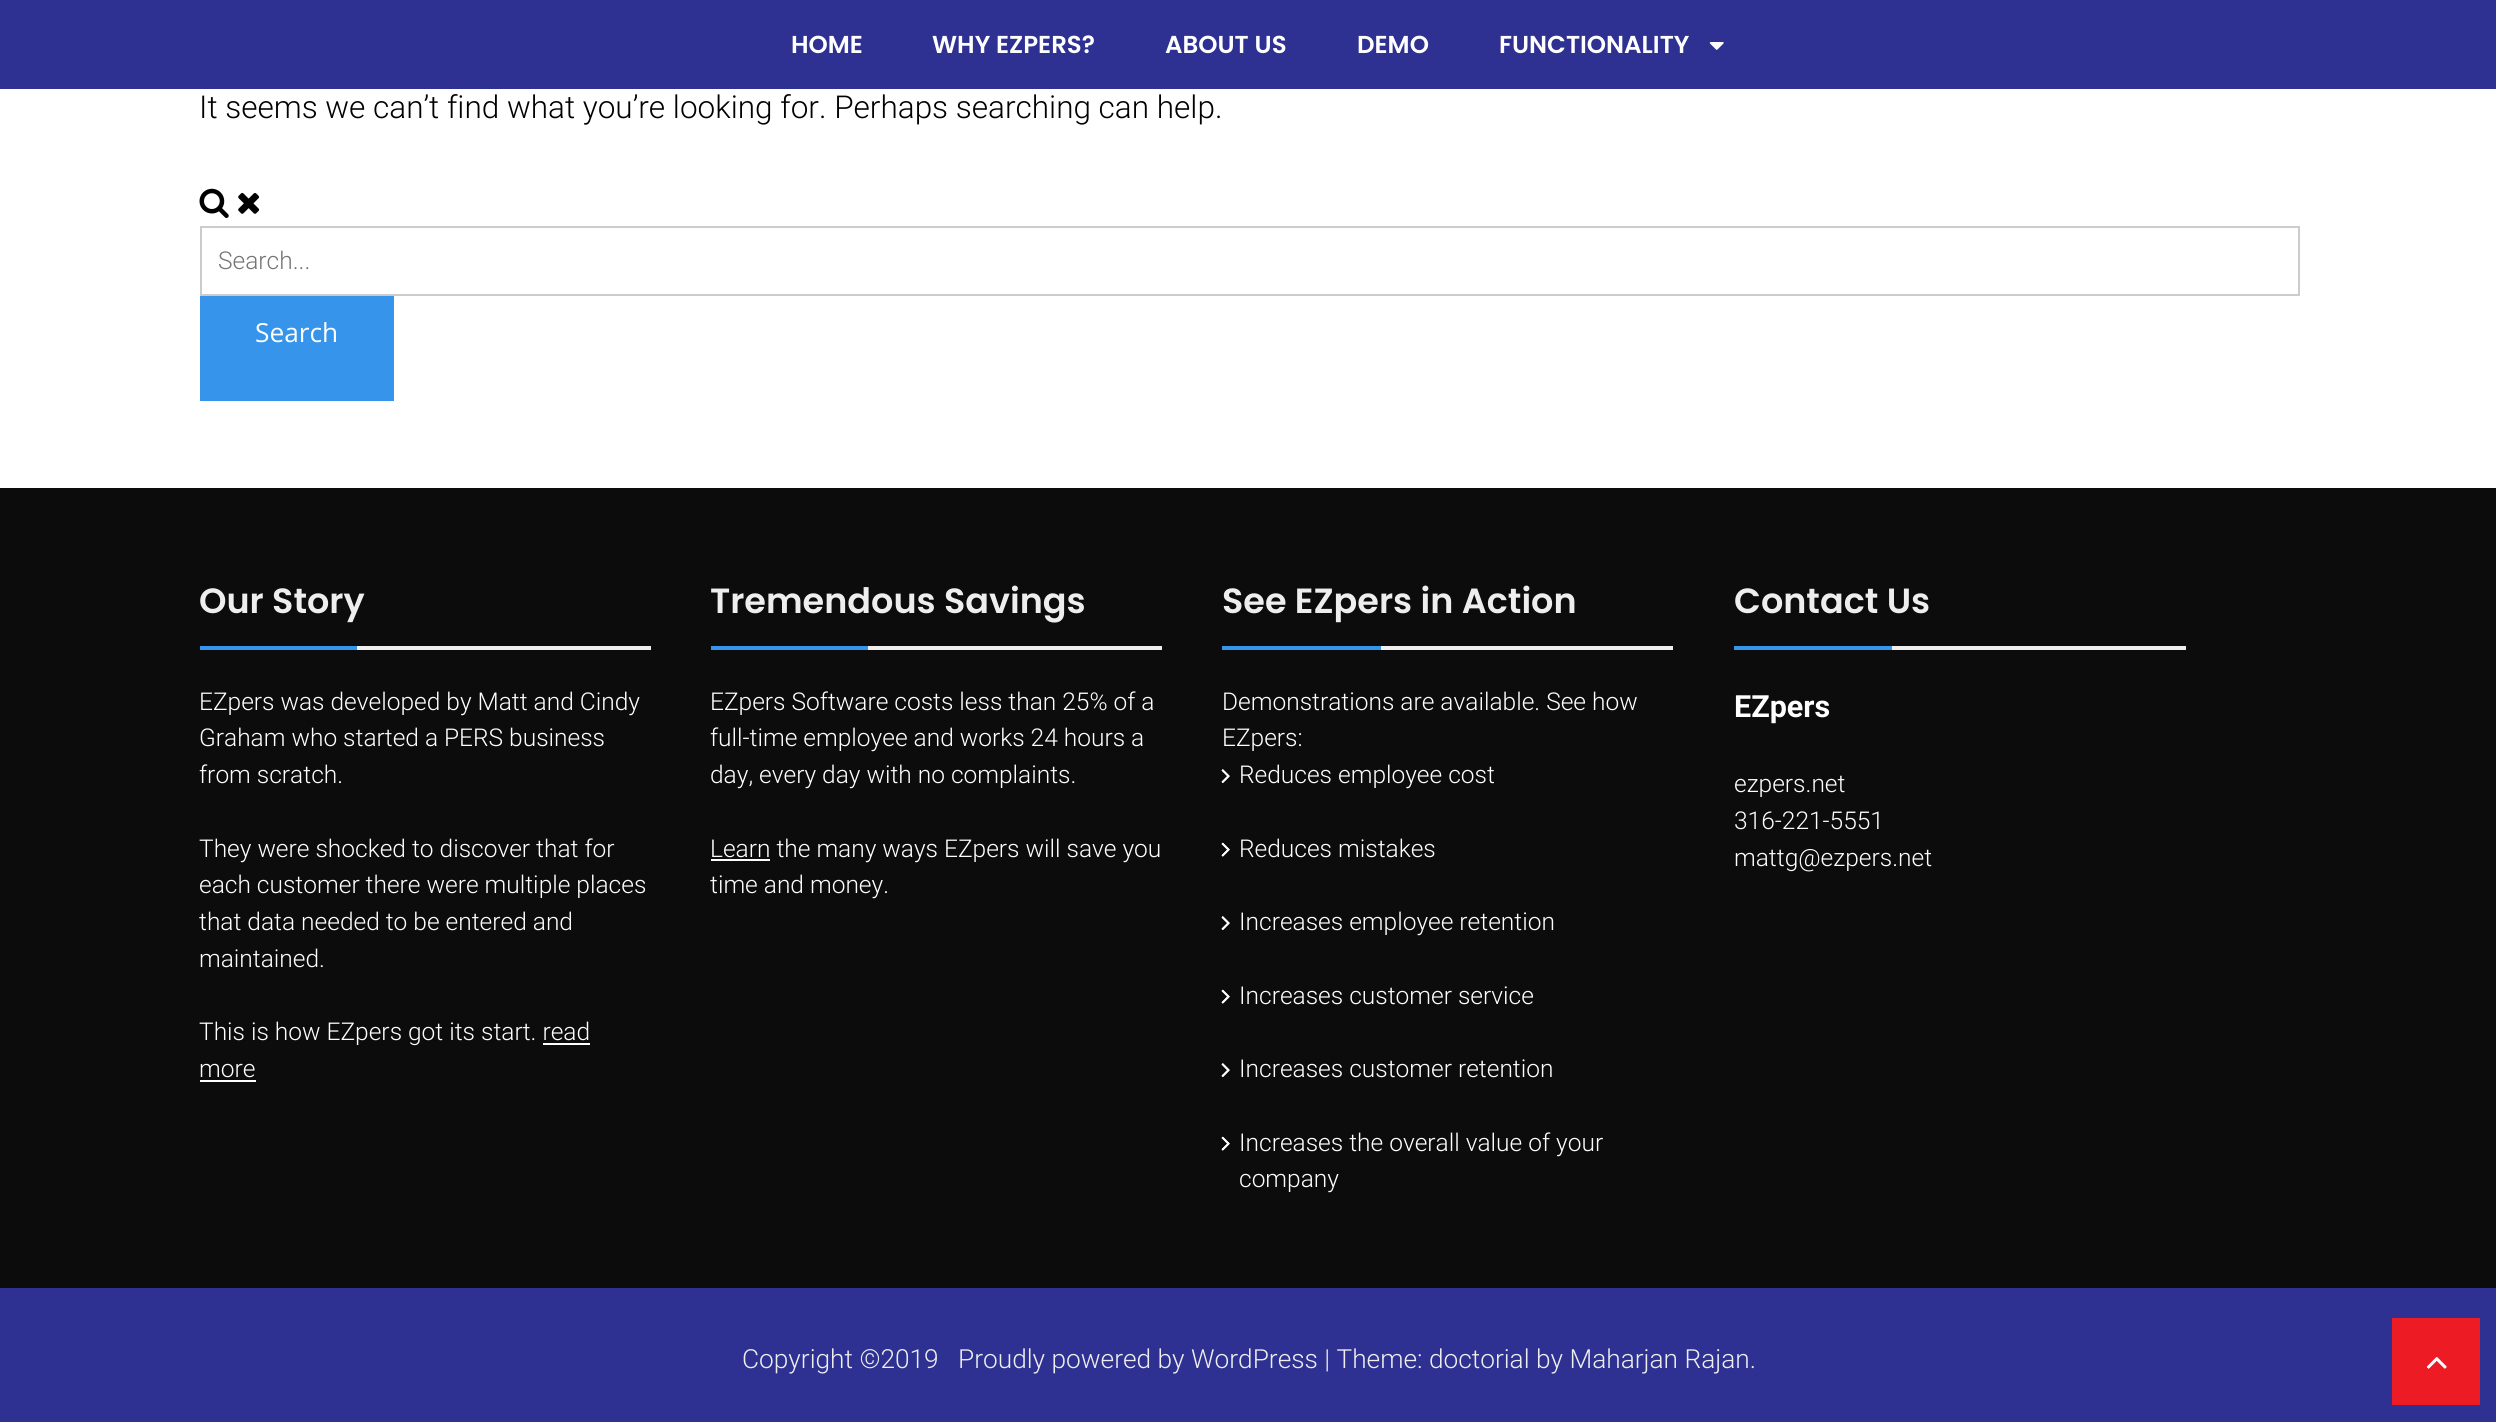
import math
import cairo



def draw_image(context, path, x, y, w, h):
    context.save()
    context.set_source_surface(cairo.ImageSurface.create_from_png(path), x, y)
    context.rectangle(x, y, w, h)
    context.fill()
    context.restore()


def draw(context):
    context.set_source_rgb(1, 1, 1)
    context.paint()
    context.set_source_rgb(46 / 255, 49 / 255, 146 / 255)
    context.rectangle(0, 0, 2496, 89)
    context.fill()
    draw_image(context, "images/1.png", 1709, 42, 15, 8)
    draw_image(context, "images/2.png", 199, 188, 30, 30)
    draw_image(context, "images/3.png", 238, 192, 22, 22)
    context.rectangle(201, 227, 2098, 68)
    context.set_source_rgb(204 / 255, 204 / 255, 204 / 255)
    context.stroke()
    context.set_source_rgb(54 / 255, 149 / 255, 235 / 255)
    context.rectangle(200, 296, 194, 105)
    context.fill()
    context.set_source_rgb(12 / 255, 12 / 255, 12 / 255)
    context.rectangle(0, 488, 2496, 800)
    context.fill()
    context.set_source_rgb(238 / 255, 238 / 255, 238 / 255)
    context.rectangle(357, 646, 294, 4)
    context.fill()
    context.set_source_rgb(54 / 255, 149 / 255, 235 / 255)
    context.rectangle(200, 646, 157, 4)
    context.fill()
    context.set_source_rgb(1, 1, 1)
    context.rectangle(543, 1043, 47, 2)
    context.fill()
    context.rectangle(200, 1080, 56, 2)
    context.fill()
    context.set_source_rgb(238 / 255, 238 / 255, 238 / 255)
    context.rectangle(868, 646, 294, 4)
    context.fill()
    context.set_source_rgb(54 / 255, 149 / 255, 235 / 255)
    context.rectangle(711, 646, 157, 4)
    context.fill()
    context.set_source_rgb(1, 1, 1)
    context.rectangle(711, 859, 59, 2)
    context.fill()
    context.set_source_rgb(238 / 255, 238 / 255, 238 / 255)
    context.rectangle(1381, 646, 292, 4)
    context.fill()
    context.set_source_rgb(54 / 255, 149 / 255, 235 / 255)
    context.rectangle(1222, 646, 159, 4)
    context.fill()
    draw_image(context, "images/4.png", 1221, 769, 9, 14)
    draw_image(context, "images/5.png", 1221, 769, 9, 14)
    draw_image(context, "images/6.png", 1221, 842, 9, 15)
    draw_image(context, "images/7.png", 1221, 842, 9, 15)
    draw_image(context, "images/4.png", 1221, 916, 9, 14)
    draw_image(context, "images/5.png", 1221, 916, 9, 14)
    draw_image(context, "images/6.png", 1221, 989, 9, 15)
    draw_image(context, "images/7.png", 1221, 989, 9, 15)
    draw_image(context, "images/4.png", 1221, 1063, 9, 14)
    draw_image(context, "images/5.png", 1221, 1063, 9, 14)
    draw_image(context, "images/6.png", 1221, 1136, 9, 15)
    draw_image(context, "images/7.png", 1221, 1136, 9, 15)
    context.set_source_rgb(238 / 255, 238 / 255, 238 / 255)
    context.rectangle(1892, 646, 294, 4)
    context.fill()
    context.set_source_rgb(54 / 255, 149 / 255, 235 / 255)
    context.rectangle(1734, 646, 158, 4)
    context.fill()
    context.set_source_rgb(46 / 255, 49 / 255, 146 / 255)
    context.rectangle(0, 1288, 2496, 134)
    context.fill()
    context.set_source_rgb(237 / 255, 28 / 255, 36 / 255)
    context.rectangle(2392, 1318, 88, 87)
    context.fill()
    draw_image(context, "images/8.png", 2427, 1357, 20, 12)
    draw_image(context, "images/9.png", 2427, 1357, 20, 12)
    context.select_font_face("Poppins SemiBold")
    context.set_font_size(24.5)
    context.set_source_rgb(1, 1, 1)
    context.move_to(791, 53)
    context.show_text("HOME")
    context.move_to(932, 53)
    context.show_text("WHY EZPERS?")
    context.move_to(1165, 53)
    context.show_text("ABOUT US")
    context.move_to(1357, 53)
    context.show_text("DEMO")
    context.move_to(1499, 53)
    context.show_text("FUNCTIONALITY")
    context.select_font_face("Roboto Light")
    context.set_font_size(31.5)
    context.set_source_rgb(0, 0, 0)
    context.move_to(199, 118)
    context.show_text("It seems we can’t find what you’re looking for. Perhaps searching can help.")
    context.set_font_size(24.5)
    context.set_source_rgb(117 / 255, 117 / 255, 117 / 255)
    context.move_to(218, 269)
    context.show_text("Search...")
    context.select_font_face("Open Sans")
    context.set_font_size(26.25)
    context.set_source_rgb(1, 1, 1)
    context.move_to(255, 342)
    context.show_text("Search")
    context.select_font_face("Poppins SemiBold")
    context.set_font_size(35)
    context.set_source_rgb(238 / 255, 238 / 255, 238 / 255)
    context.move_to(199, 613)
    context.show_text("Our Story")
    context.select_font_face("Roboto Light")
    context.set_font_size(24.5)
    context.set_source_rgb(1, 1, 1)
    context.move_to(199, 710)
    context.show_text("EZpers was developed by Matt and Cindy")
    context.move_to(199, 746)
    context.show_text("Graham who started a PERS business")
    context.move_to(199, 783)
    context.show_text("from scratch.")
    context.move_to(199, 857)
    context.show_text("They were shocked to discover that for")
    context.move_to(199, 893)
    context.show_text("each customer there were multiple places")
    context.move_to(199, 930)
    context.show_text("that data needed to be entered and")
    context.move_to(199, 967)
    context.show_text("maintained.")
    context.move_to(199, 1040)
    context.show_text("This is how EZpers got its start. read")
    context.move_to(199, 1077)
    context.show_text("more")
    context.select_font_face("Poppins SemiBold")
    context.set_font_size(35)
    context.set_source_rgb(238 / 255, 238 / 255, 238 / 255)
    context.move_to(710, 613)
    context.show_text("Tremendous Savings")
    context.select_font_face("Roboto Light")
    context.set_font_size(24.5)
    context.set_source_rgb(1, 1, 1)
    context.move_to(710, 710)
    context.show_text("EZpers Software costs less than 25% of a")
    context.move_to(710, 746)
    context.show_text("full-time employee and works 24 hours a")
    context.move_to(710, 783)
    context.show_text("day, every day with no complaints.")
    context.move_to(710, 857)
    context.show_text("Learn the many ways EZpers will save you")
    context.move_to(710, 893)
    context.show_text("time and money.")
    context.select_font_face("Poppins SemiBold")
    context.set_font_size(35)
    context.set_source_rgb(238 / 255, 238 / 255, 238 / 255)
    context.move_to(1222, 613)
    context.show_text("See EZpers in Action")
    context.select_font_face("Roboto Light")
    context.set_font_size(24.5)
    context.set_source_rgb(1, 1, 1)
    context.move_to(1222, 710)
    context.show_text("Demonstrations are available. See how")
    context.move_to(1222, 746)
    context.show_text("EZpers:")
    context.move_to(1239, 783)
    context.show_text("Reduces employee cost")
    context.move_to(1239, 857)
    context.show_text("Reduces mistakes")
    context.move_to(1239, 930)
    context.show_text("Increases employee retention")
    context.move_to(1239, 1004)
    context.show_text("Increases customer service")
    context.move_to(1239, 1077)
    context.show_text("Increases customer retention")
    context.move_to(1239, 1151)
    context.show_text("Increases the overall value of your")
    context.move_to(1239, 1187)
    context.show_text("company")
    context.select_font_face("Poppins SemiBold")
    context.set_font_size(35)
    context.set_source_rgb(238 / 255, 238 / 255, 238 / 255)
    context.move_to(1734, 613)
    context.show_text("Contact Us")
    context.select_font_face("Roboto", cairo.FontSlant.NORMAL, cairo.FontWeight.BOLD)
    context.set_font_size(30.5)
    context.set_source_rgb(1, 1, 1)
    context.move_to(1734, 717)
    context.show_text("EZpers")
    context.select_font_face("Roboto Light")
    context.set_font_size(24.5)
    context.move_to(1734, 792)
    context.show_text("ezpers.net")
    context.move_to(1734, 829)
    context.show_text("316-221-5551")
    context.move_to(1734, 866)
    context.show_text("mattg@ezpers.net")
    context.set_font_size(26.25)
    context.set_source_rgb(238 / 255, 238 / 255, 238 / 255)
    context.move_to(742, 1368)
    context.show_text("Copyright ©2019")
    context.move_to(958, 1368)
    context.show_text("Proudly powered by WordPress | Theme: doctorial by Maharjan Rajan.")


surface = cairo.ImageSurface(cairo.Format.RGB24, 2496, 1422)
context = cairo.Context(surface)
options = cairo.FontOptions()
options.set_hint_metrics(cairo.HintMetrics.OFF)
options.set_hint_style(cairo.HintStyle.NONE)
context.set_font_options(options)
context.set_miter_limit(4)
draw(context)
surface.write_to_png("out.png")
